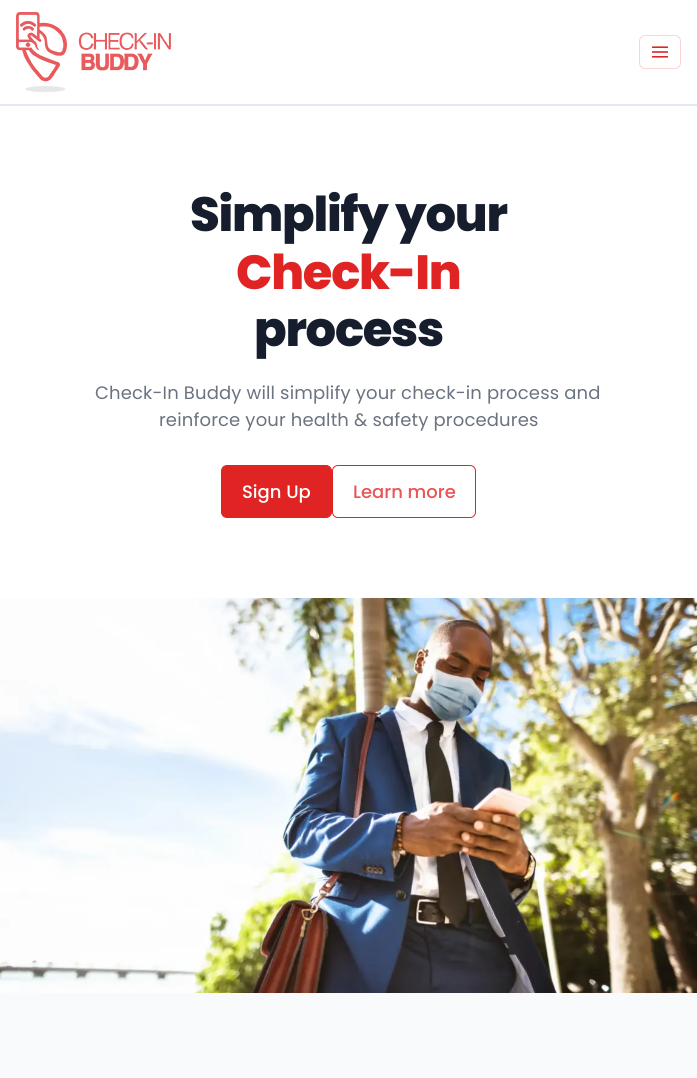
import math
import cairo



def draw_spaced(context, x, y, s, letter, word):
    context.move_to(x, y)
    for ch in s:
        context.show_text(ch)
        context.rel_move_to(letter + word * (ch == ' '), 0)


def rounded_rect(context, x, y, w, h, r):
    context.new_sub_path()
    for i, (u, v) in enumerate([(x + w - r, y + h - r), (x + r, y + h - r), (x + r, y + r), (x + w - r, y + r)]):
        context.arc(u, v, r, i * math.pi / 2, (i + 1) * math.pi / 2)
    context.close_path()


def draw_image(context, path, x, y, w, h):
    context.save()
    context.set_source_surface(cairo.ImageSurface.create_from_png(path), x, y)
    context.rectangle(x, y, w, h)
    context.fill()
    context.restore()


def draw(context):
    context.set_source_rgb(1, 1, 1)
    context.paint()
    context.set_source_rgb(226 / 255, 232 / 255, 240 / 255)
    context.rectangle(0, 104, 697, 2)
    context.fill()
    draw_image(context, "images/1.png", 16, 12, 155, 80)
    rounded_rect(context, 639.5, 35.5, 41, 33, 5.5)
    context.set_source_rgb(251 / 255, 213 / 255, 213 / 255)
    context.set_line_width(1)
    context.stroke()
    draw_image(context, "images/2.png", 652, 46, 16, 12)
    context.set_source_rgb(224 / 255, 36 / 255, 36 / 255)
    rounded_rect(context, 221.5, 465.5, 110, 52, 5.5)
    context.fill_preserve()
    context.stroke()
    rounded_rect(context, 332.5, 465.5, 143, 52, 5.5)
    context.stroke()
    draw_image(context, "images/3.png", 0, 598, 697, 395)
    context.set_source_rgb(249 / 255, 250 / 255, 251 / 255)
    context.rectangle(0, 993, 697, 85)
    context.fill()
    context.select_font_face("Poppins ExtraBold")
    context.set_font_size(48)
    context.set_source_rgb(22 / 255, 30 / 255, 46 / 255)
    draw_spaced(context, 190, 231, "Simplify your", -1.25, 0)
    context.set_source_rgb(224 / 255, 36 / 255, 36 / 255)
    draw_spaced(context, 236, 289, "Check-In", -1.25, 0)
    context.set_source_rgb(22 / 255, 30 / 255, 46 / 255)
    draw_spaced(context, 254, 346, "process", -1.25, 0)
    context.select_font_face("Poppins")
    context.set_font_size(18)
    context.set_source_rgb(107 / 255, 114 / 255, 128 / 255)
    draw_spaced(context, 95, 399, "Check-In Buddy will simplify your check-in process and", 0.15, 0)
    draw_spaced(context, 159, 426, "reinforce your health & safety procedures", 0.15, 0)
    context.select_font_face("Poppins Medium")
    context.set_source_rgb(1, 1, 1)
    context.move_to(242, 498)
    context.show_text("Sign Up")
    context.set_source_rgb(234 / 255, 84 / 255, 85 / 255)
    context.move_to(353, 498)
    context.show_text("Learn more")


surface = cairo.ImageSurface(cairo.Format.RGB24, 697, 1078)
context = cairo.Context(surface)
options = cairo.FontOptions()
options.set_hint_metrics(cairo.HintMetrics.OFF)
options.set_hint_style(cairo.HintStyle.NONE)
context.set_font_options(options)
context.set_miter_limit(4)
draw(context)
surface.write_to_png("out.png")
